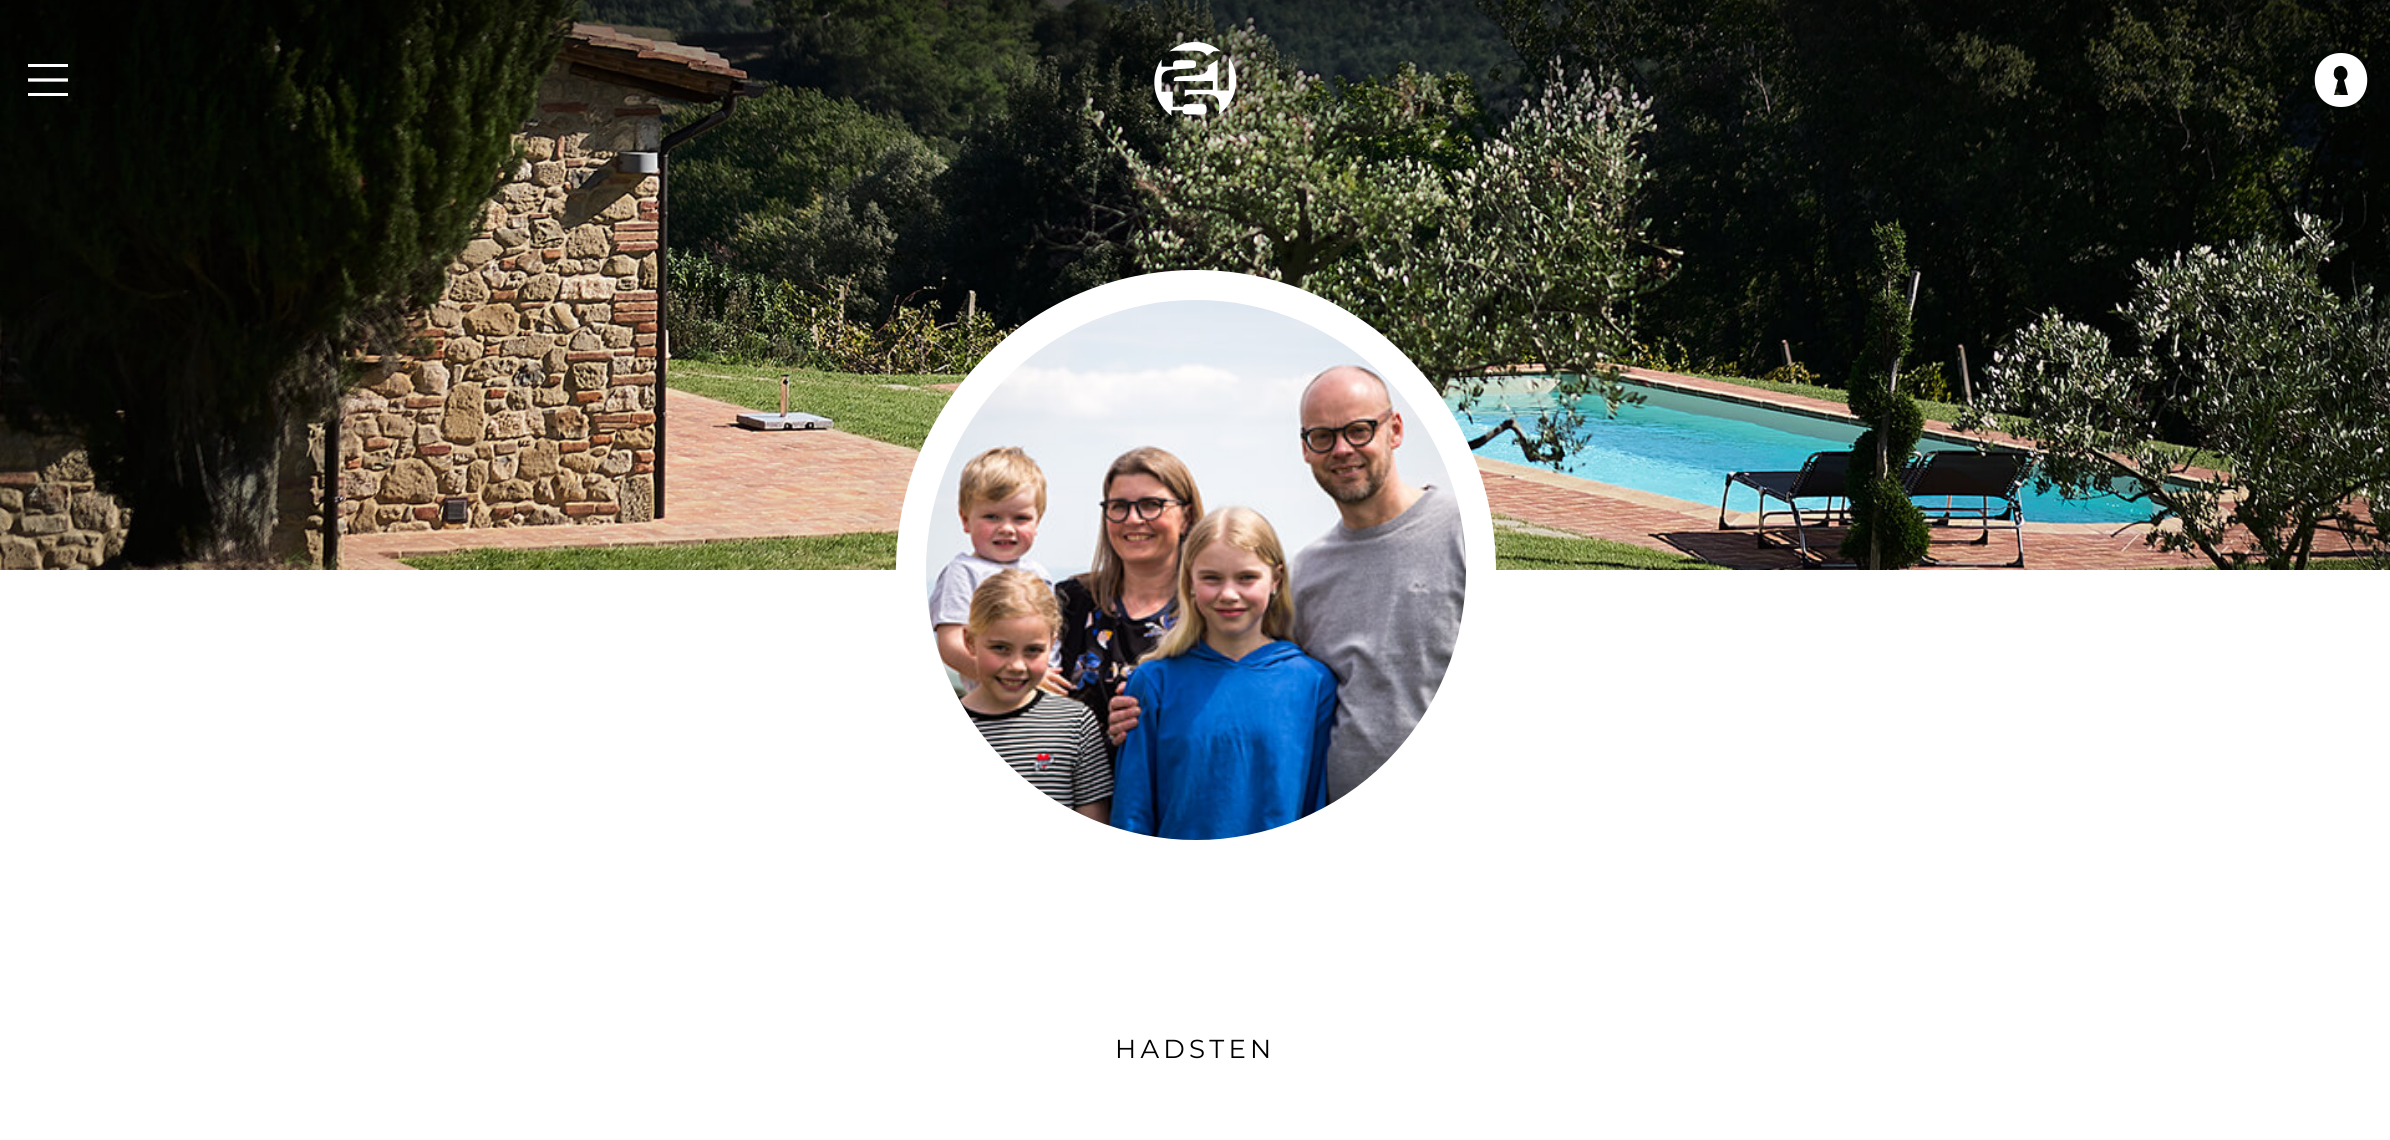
import math
import cairo



def draw_spaced(context, x, y, s, letter, word):
    context.move_to(x, y)
    for ch in s:
        context.show_text(ch)
        context.rel_move_to(letter + word * (ch == ' '), 0)


def draw_image(context, path, x, y, w, h):
    context.save()
    context.set_source_surface(cairo.ImageSurface.create_from_png(path), x, y)
    context.rectangle(x, y, w, h)
    context.fill()
    context.restore()


def draw(context):
    context.set_source_rgb(1, 1, 1)
    context.paint()
    draw_image(context, "images/2.png", 0, 0, 2390, 570)
    context.set_source_rgb(1, 1, 1)
    context.rectangle(28, 64, 40, 3)
    context.fill()
    context.new_path()
    context.move_to(28, 80)
    context.line_to(68, 80)
    context.set_line_width(3.3)
    context.stroke()
    context.rectangle(28, 93, 40, 3)
    context.fill()
    draw_image(context, "images/1.png", 1154, 42, 83, 74)
    context.new_path()
    context.move_to(2341, 53)
    context.curve_to(2306, 53, 2306, 107, 2341, 107)
    context.curve_to(2376, 107, 2376, 53, 2341, 53)
    context.close_path()
    context.move_to(2334, 95)
    context.line_to(2338, 80)
    context.curve_to(2335, 79, 2333, 75, 2334, 72)
    context.curve_to(2334, 70, 2335, 68, 2337, 67)
    context.curve_to(2345, 62, 2352, 75, 2344, 80)
    context.line_to(2348, 95)
    context.close_path()
    context.fill()
    context.arc(1196, 570, 285, 0, 2 * math.pi)
    context.fill_preserve()
    context.set_line_width(30)
    context.stroke()
    draw_image(context, "images/3.png", 926, 300, 540, 540)
    context.select_font_face("Montserrat")
    context.set_font_size(26)
    context.set_source_rgb(0, 0, 0)
    draw_spaced(context, 1115, 1058, "HADSTEN", 4.25, 0)


surface = cairo.ImageSurface(cairo.Format.RGB24, 2390, 1140)
context = cairo.Context(surface)
options = cairo.FontOptions()
options.set_hint_metrics(cairo.HintMetrics.OFF)
options.set_hint_style(cairo.HintStyle.NONE)
context.set_font_options(options)
context.set_miter_limit(4)
draw(context)
surface.write_to_png("out.png")
